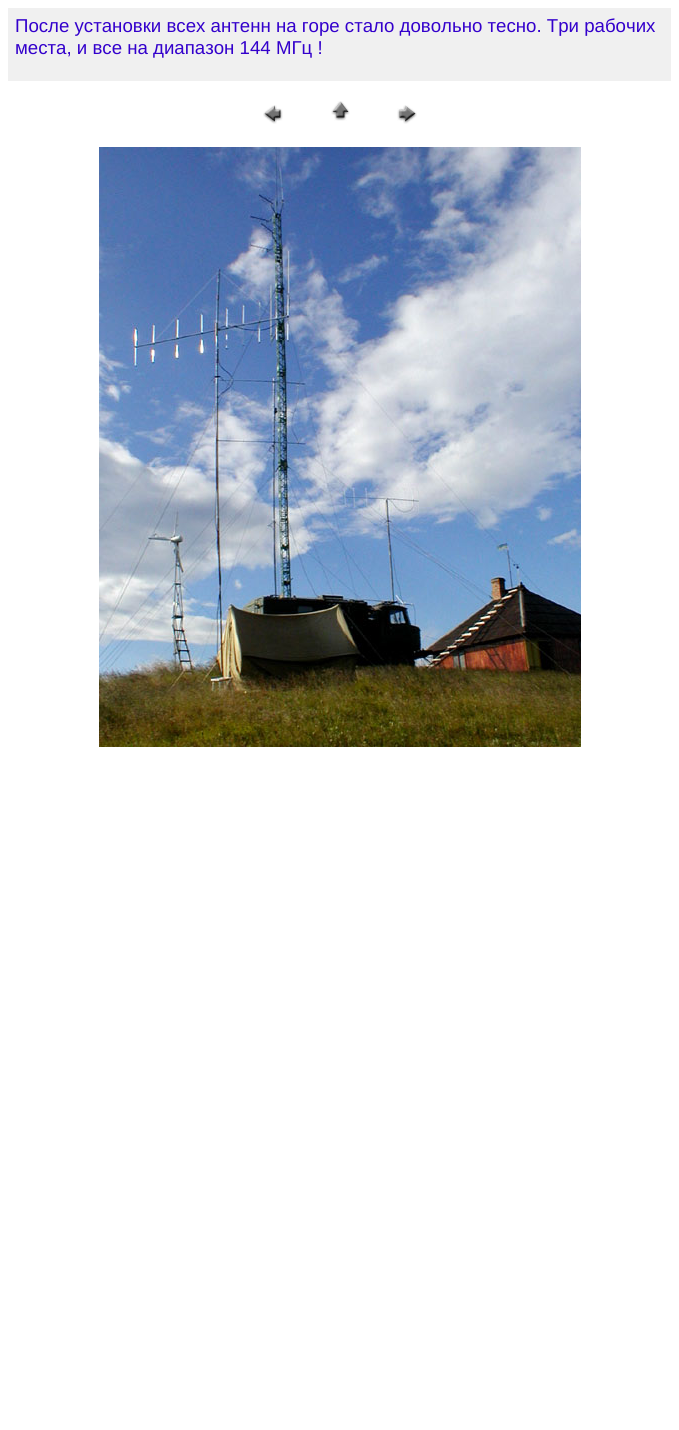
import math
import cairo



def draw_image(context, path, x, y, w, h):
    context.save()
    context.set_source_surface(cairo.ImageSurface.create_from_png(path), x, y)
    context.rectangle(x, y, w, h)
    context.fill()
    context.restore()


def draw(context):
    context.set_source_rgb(1, 1, 1)
    context.paint()
    context.set_source_rgb(240 / 255, 240 / 255, 240 / 255)
    context.rectangle(8, 8, 663, 73)
    context.fill()
    draw_image(context, "images/1.png", 263, 105, 20, 19)
    draw_image(context, "images/2.png", 331, 101, 19, 20)
    draw_image(context, "images/3.png", 397, 105, 20, 19)
    draw_image(context, "images/4.png", 99, 147, 482, 600)
    context.select_font_face("Liberation Sans")
    context.set_font_size(18.65)
    context.set_source_rgb(51 / 255, 0, 204 / 255)
    context.move_to(15, 32)
    context.show_text("После установки всех антенн на горе стало довольно тесно. Три рабочих")
    context.move_to(15, 54)
    context.show_text("места, и все на диапазон 144 МГц !")


surface = cairo.ImageSurface(cairo.Format.RGB24, 679, 1430)
context = cairo.Context(surface)
options = cairo.FontOptions()
options.set_hint_metrics(cairo.HintMetrics.OFF)
options.set_hint_style(cairo.HintStyle.NONE)
context.set_font_options(options)
context.set_miter_limit(4)
draw(context)
surface.write_to_png("out.png")
